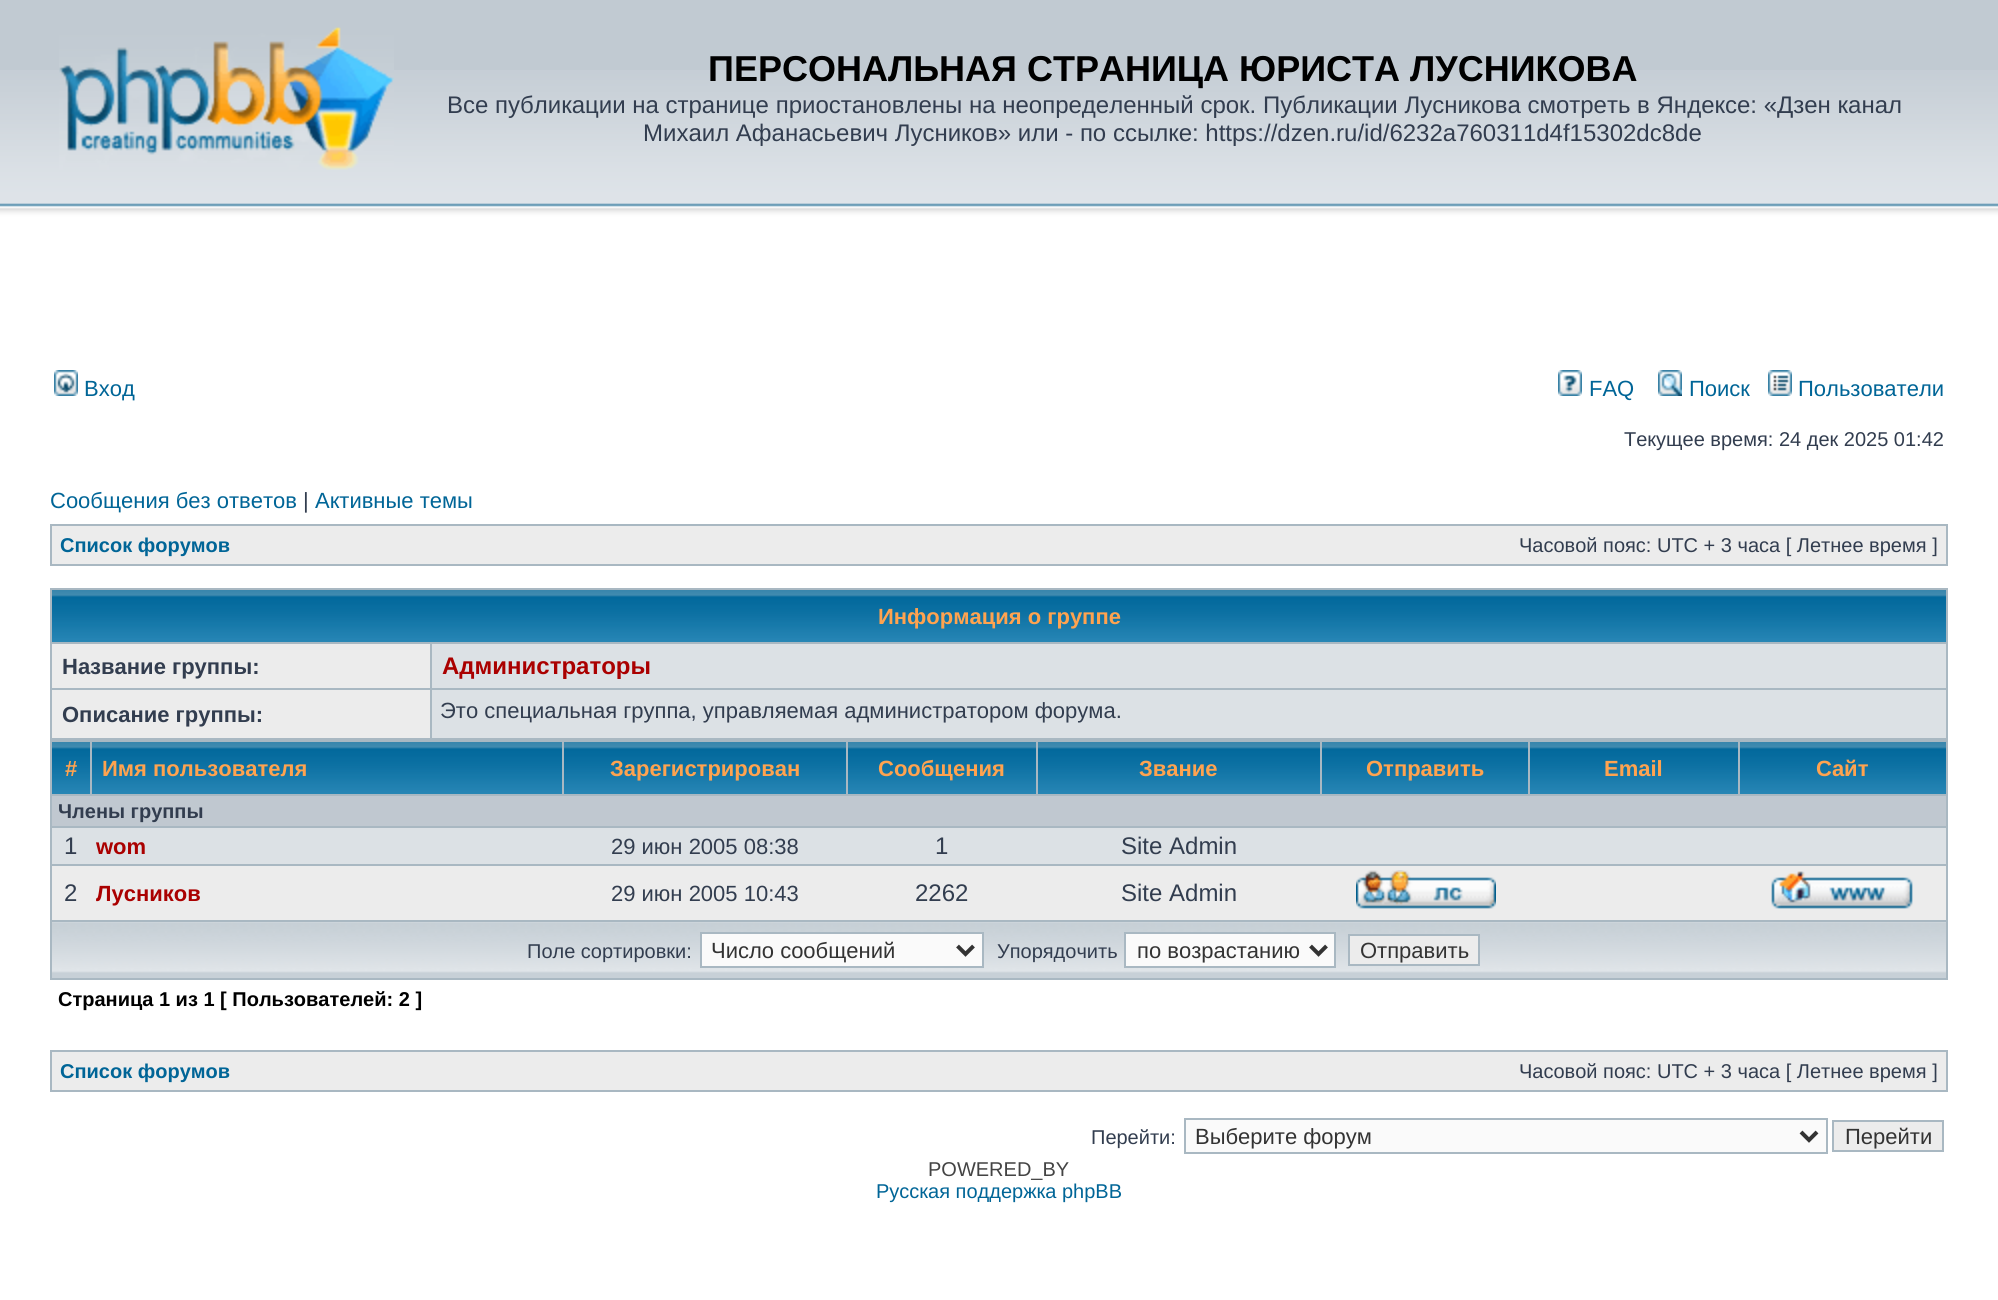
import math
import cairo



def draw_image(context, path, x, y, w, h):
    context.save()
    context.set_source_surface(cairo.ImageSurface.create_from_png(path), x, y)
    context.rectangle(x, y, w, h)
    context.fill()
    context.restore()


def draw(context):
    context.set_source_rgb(1, 1, 1)
    context.paint()
    context.set_source_rgb(193 / 255, 202 / 255, 210 / 255)
    context.rectangle(0, 0, 1998, 70)
    context.fill()
    draw_image(context, "images/1.png", 0, 70, 1998, 156)
    draw_image(context, "images/2.png", 59, 27, 335, 143)
    draw_image(context, "images/3.png", 54, 370, 24, 26)
    draw_image(context, "images/4.png", 1558, 370, 24, 26)
    draw_image(context, "images/5.png", 1658, 370, 24, 26)
    draw_image(context, "images/6.png", 1768, 370, 24, 26)
    context.set_source_rgb(169 / 255, 184 / 255, 194 / 255)
    context.rectangle(50, 524, 1898, 42)
    context.fill()
    context.set_source_rgb(236 / 255, 236 / 255, 236 / 255)
    context.rectangle(52, 526, 1894, 38)
    context.fill()
    context.set_source_rgb(169 / 255, 184 / 255, 194 / 255)
    context.rectangle(50, 588, 1898, 392)
    context.fill()
    draw_image(context, "images/7.png", 52, 590, 1894, 52)
    context.set_source_rgb(236 / 255, 236 / 255, 236 / 255)
    context.rectangle(52, 644, 378, 44)
    context.fill()
    context.set_source_rgb(220 / 255, 225 / 255, 229 / 255)
    context.rectangle(432, 644, 1514, 44)
    context.fill()
    context.set_source_rgb(236 / 255, 236 / 255, 236 / 255)
    context.rectangle(52, 690, 378, 48)
    context.fill()
    context.set_source_rgb(220 / 255, 225 / 255, 229 / 255)
    context.rectangle(432, 690, 1514, 48)
    context.fill()
    draw_image(context, "images/8.png", 52, 742, 38, 52)
    draw_image(context, "images/9.png", 92, 742, 470, 52)
    draw_image(context, "images/10.png", 564, 742, 282, 52)
    draw_image(context, "images/11.png", 848, 742, 188, 52)
    draw_image(context, "images/10.png", 1038, 742, 282, 52)
    draw_image(context, "images/12.png", 1322, 742, 206, 52)
    draw_image(context, "images/13.png", 1530, 742, 208, 52)
    draw_image(context, "images/12.png", 1740, 742, 206, 52)
    context.set_source_rgb(192 / 255, 200 / 255, 208 / 255)
    context.rectangle(52, 796, 1894, 30)
    context.fill()
    context.set_source_rgb(220 / 255, 225 / 255, 229 / 255)
    context.rectangle(52, 828, 1894, 36)
    context.fill()
    context.set_source_rgb(236 / 255, 236 / 255, 236 / 255)
    context.rectangle(52, 866, 1894, 54)
    context.fill()
    draw_image(context, "images/14.png", 1356, 870, 140, 39)
    draw_image(context, "images/15.png", 1771, 871, 142, 38)
    context.set_source_rgb(199 / 255, 208 / 255, 215 / 255)
    context.rectangle(52, 973, 1894, 5)
    context.fill()
    draw_image(context, "images/16.png", 52, 922, 1894, 51)
    context.set_source_rgb(250 / 255, 250 / 255, 250 / 255)
    context.rectangle(701, 933, 282, 34)
    context.fill_preserve()
    context.set_source_rgb(169 / 255, 184 / 255, 194 / 255)
    context.stroke()
    context.new_path()
    context.move_to(957.5, 946)
    context.line_to(965.5, 954)
    context.line_to(973.5, 946)
    context.set_source_rgb(51 / 255, 51 / 255, 51 / 255)
    context.set_line_width(4)
    context.stroke()
    context.set_source_rgb(250 / 255, 250 / 255, 250 / 255)
    context.rectangle(1125, 933, 210, 34)
    context.fill_preserve()
    context.set_source_rgb(169 / 255, 184 / 255, 194 / 255)
    context.set_line_width(2)
    context.stroke()
    context.new_path()
    context.move_to(1310.5, 946)
    context.line_to(1318.5, 954)
    context.line_to(1326.5, 946)
    context.set_source_rgb(51 / 255, 51 / 255, 51 / 255)
    context.set_line_width(4)
    context.stroke()
    context.set_source_rgb(236 / 255, 236 / 255, 236 / 255)
    context.rectangle(1349, 935, 130, 30)
    context.fill_preserve()
    context.set_source_rgb(169 / 255, 184 / 255, 194 / 255)
    context.set_line_width(2)
    context.stroke()
    context.rectangle(50, 1050, 1898, 42)
    context.fill()
    context.set_source_rgb(236 / 255, 236 / 255, 236 / 255)
    context.rectangle(52, 1052, 1894, 38)
    context.fill()
    context.set_source_rgb(250 / 255, 250 / 255, 250 / 255)
    context.rectangle(1185, 1119, 642, 34)
    context.fill_preserve()
    context.set_source_rgb(169 / 255, 184 / 255, 194 / 255)
    context.stroke()
    context.new_path()
    context.move_to(1801, 1132)
    context.line_to(1809, 1140)
    context.line_to(1817, 1132)
    context.set_source_rgb(51 / 255, 51 / 255, 51 / 255)
    context.set_line_width(4)
    context.stroke()
    context.set_source_rgb(236 / 255, 236 / 255, 236 / 255)
    context.rectangle(1833, 1121, 110, 30)
    context.fill_preserve()
    context.set_source_rgb(169 / 255, 184 / 255, 194 / 255)
    context.set_line_width(2)
    context.stroke()
    context.select_font_face("Liberation Sans", cairo.FontSlant.NORMAL, cairo.FontWeight.BOLD)
    context.set_font_size(36)
    context.set_source_rgb(0, 0, 0)
    context.move_to(708, 81)
    context.show_text("ПЕРСОНАЛЬНАЯ СТРАНИЦА ЮРИСТА ЛУСНИКОВА")
    context.select_font_face("Liberation Sans")
    context.set_font_size(24)
    context.set_source_rgb(50 / 255, 61 / 255, 79 / 255)
    context.move_to(447, 113)
    context.show_text("Все публикации на странице приостановлены на неопределенный срок. Публикации Лусникова смотреть в Яндексе: «Дзен канал")
    context.move_to(643, 141)
    context.show_text("Михаил Афанасьевич Лусников» или - по ссылке: https://dzen.ru/id/6232a760311d4f15302dc8de")
    context.set_font_size(22)
    context.set_source_rgb(0, 101 / 255, 151 / 255)
    context.move_to(84, 396)
    context.show_text("Вход")
    context.move_to(1589, 396)
    context.show_text("FAQ")
    context.move_to(1689, 396)
    context.show_text("Поиск")
    context.move_to(1798, 396)
    context.show_text("Пользователи")
    context.set_font_size(20)
    context.set_source_rgb(50 / 255, 61 / 255, 79 / 255)
    context.move_to(1624, 446)
    context.show_text("Текущее время: 24 дек 2025 01:42")
    context.set_font_size(22)
    context.set_source_rgb(0, 101 / 255, 151 / 255)
    context.move_to(50, 508)
    context.show_text("Сообщения без ответов")
    context.set_source_rgb(50 / 255, 61 / 255, 79 / 255)
    context.move_to(303, 508)
    context.show_text("|")
    context.set_source_rgb(0, 101 / 255, 151 / 255)
    context.move_to(315, 508)
    context.show_text("Активные темы")
    context.select_font_face("Liberation Sans", cairo.FontSlant.NORMAL, cairo.FontWeight.BOLD)
    context.set_font_size(20)
    context.move_to(60, 552)
    context.show_text("Список форумов")
    context.select_font_face("Liberation Sans")
    context.set_source_rgb(50 / 255, 61 / 255, 79 / 255)
    context.move_to(1519, 552)
    context.show_text("Часовой пояс: UTC + 3 часа [ Летнее время ]")
    context.select_font_face("Liberation Sans", cairo.FontSlant.NORMAL, cairo.FontWeight.BOLD)
    context.set_font_size(22)
    context.set_source_rgb(1, 163 / 255, 79 / 255)
    context.move_to(878, 624)
    context.show_text("Информация о группе")
    context.set_source_rgb(50 / 255, 61 / 255, 79 / 255)
    context.move_to(62, 674)
    context.show_text("Название группы:")
    context.set_font_size(24)
    context.set_source_rgb(170 / 255, 0, 0)
    context.move_to(442, 674)
    context.show_text("Администраторы")
    context.set_font_size(22)
    context.set_source_rgb(50 / 255, 61 / 255, 79 / 255)
    context.move_to(62, 722)
    context.show_text("Описание группы:")
    context.select_font_face("Liberation Sans")
    context.move_to(440, 718)
    context.show_text("Это специальная группа, управляемая администратором форума.")
    context.select_font_face("Liberation Sans", cairo.FontSlant.NORMAL, cairo.FontWeight.BOLD)
    context.set_source_rgb(1, 163 / 255, 79 / 255)
    context.move_to(65, 776)
    context.show_text("#")
    context.move_to(102, 776)
    context.show_text("Имя пользователя")
    context.move_to(610, 776)
    context.show_text("Зарегистрирован")
    context.move_to(878, 776)
    context.show_text("Сообщения")
    context.move_to(1139, 776)
    context.show_text("Звание")
    context.move_to(1366, 776)
    context.show_text("Отправить")
    context.move_to(1604, 776)
    context.show_text("Email")
    context.move_to(1816, 776)
    context.show_text("Сайт")
    context.set_font_size(20)
    context.set_source_rgb(50 / 255, 61 / 255, 79 / 255)
    context.move_to(58, 818)
    context.show_text("Члены группы")
    context.select_font_face("Liberation Sans")
    context.set_font_size(24)
    context.move_to(64, 854)
    context.show_text("1")
    context.select_font_face("Liberation Sans", cairo.FontSlant.NORMAL, cairo.FontWeight.BOLD)
    context.set_font_size(22)
    context.set_source_rgb(170 / 255, 0, 0)
    context.move_to(96, 854)
    context.show_text("wom")
    context.select_font_face("Liberation Sans")
    context.set_source_rgb(50 / 255, 61 / 255, 79 / 255)
    context.move_to(611, 854)
    context.show_text("29 июн 2005 08:38")
    context.set_font_size(24)
    context.move_to(935, 854)
    context.show_text("1")
    context.move_to(1121, 854)
    context.show_text("Site Admin")
    context.move_to(64, 901)
    context.show_text("2")
    context.select_font_face("Liberation Sans", cairo.FontSlant.NORMAL, cairo.FontWeight.BOLD)
    context.set_font_size(22)
    context.set_source_rgb(170 / 255, 0, 0)
    context.move_to(96, 901)
    context.show_text("Лусников")
    context.select_font_face("Liberation Sans")
    context.set_source_rgb(50 / 255, 61 / 255, 79 / 255)
    context.move_to(611, 901)
    context.show_text("29 июн 2005 10:43")
    context.set_font_size(24)
    context.move_to(915, 901)
    context.show_text("2262")
    context.move_to(1121, 901)
    context.show_text("Site Admin")
    context.set_font_size(20)
    context.move_to(527, 958)
    context.show_text("Поле сортировки:")
    context.set_font_size(22)
    context.set_source_rgb(51 / 255, 51 / 255, 51 / 255)
    context.move_to(711, 958)
    context.show_text("Число сообщений")
    context.set_font_size(20)
    context.set_source_rgb(50 / 255, 61 / 255, 79 / 255)
    context.move_to(997, 958)
    context.show_text("Упорядочить")
    context.set_font_size(22)
    context.set_source_rgb(51 / 255, 51 / 255, 51 / 255)
    context.move_to(1137, 958)
    context.show_text("по возрастанию")
    context.move_to(1360, 958)
    context.show_text("Отправить")
    context.select_font_face("Liberation Sans", cairo.FontSlant.NORMAL, cairo.FontWeight.BOLD)
    context.set_font_size(20)
    context.set_source_rgb(0, 0, 0)
    context.move_to(58, 1006)
    context.show_text("Страница 1 из 1 [ Пользователей: 2 ]")
    context.set_source_rgb(0, 101 / 255, 151 / 255)
    context.move_to(60, 1078)
    context.show_text("Список форумов")
    context.select_font_face("Liberation Sans")
    context.set_source_rgb(50 / 255, 61 / 255, 79 / 255)
    context.move_to(1519, 1078)
    context.show_text("Часовой пояс: UTC + 3 часа [ Летнее время ]")
    context.move_to(1091, 1144)
    context.show_text("Перейти:")
    context.set_font_size(22)
    context.set_source_rgb(51 / 255, 51 / 255, 51 / 255)
    context.move_to(1195, 1144)
    context.show_text("Выберите форум")
    context.move_to(1845, 1144)
    context.show_text("Перейти")
    context.set_font_size(20)
    context.set_source_rgb(68 / 255, 68 / 255, 68 / 255)
    context.move_to(928, 1176)
    context.show_text("POWERED_BY")
    context.set_source_rgb(0, 101 / 255, 151 / 255)
    context.move_to(876, 1198)
    context.show_text("Русская поддержка phpBB")


surface = cairo.ImageSurface(cairo.Format.RGB24, 1998, 1300)
context = cairo.Context(surface)
options = cairo.FontOptions()
options.set_hint_metrics(cairo.HintMetrics.OFF)
options.set_hint_style(cairo.HintStyle.NONE)
context.set_font_options(options)
context.set_miter_limit(4)
draw(context)
surface.write_to_png("out.png")
